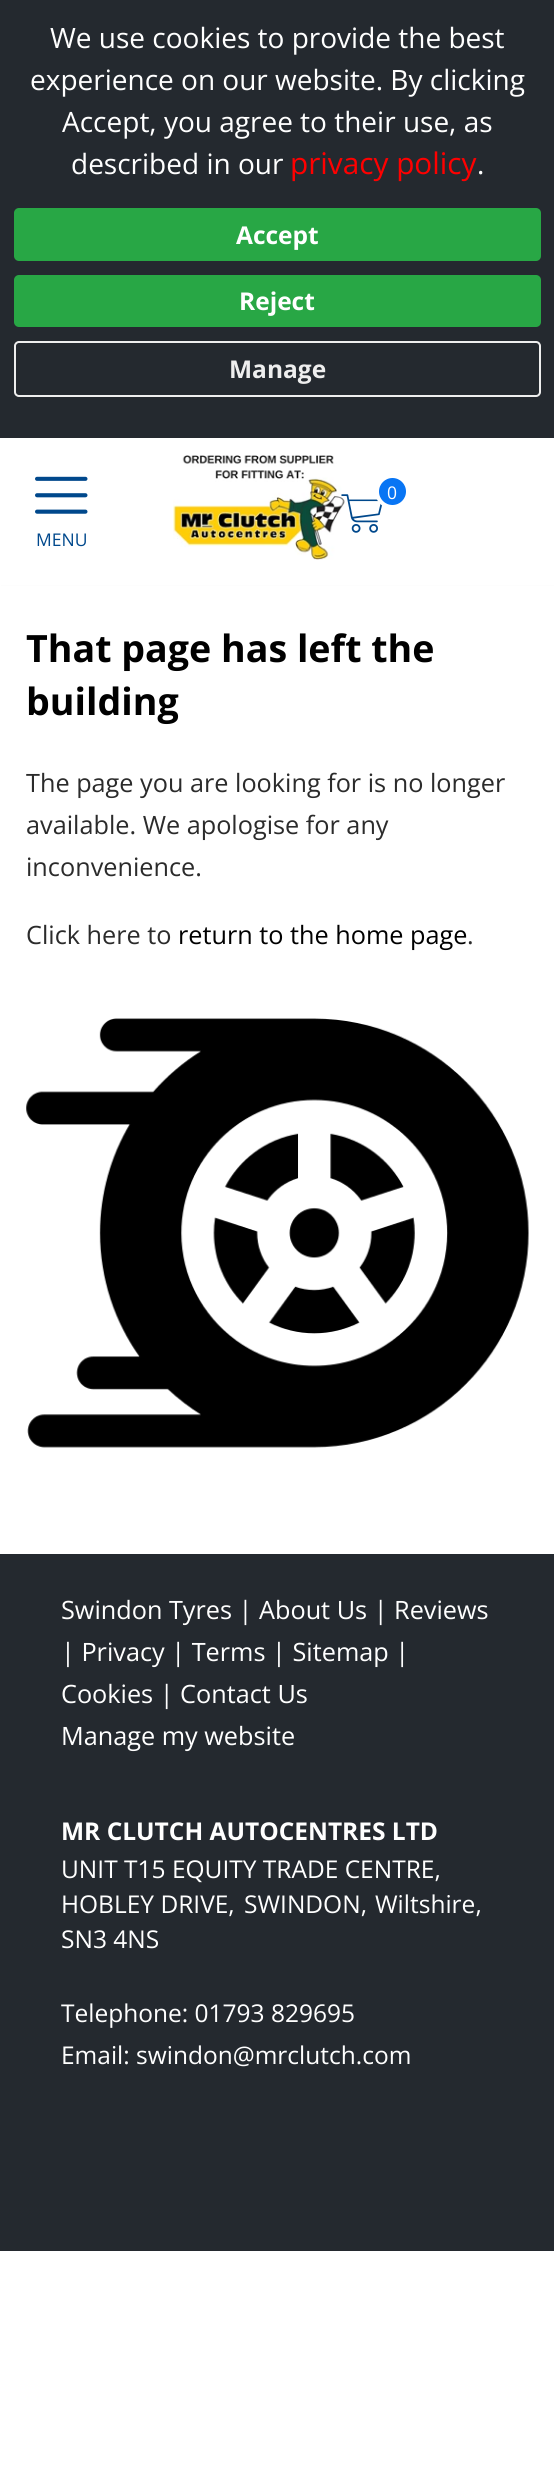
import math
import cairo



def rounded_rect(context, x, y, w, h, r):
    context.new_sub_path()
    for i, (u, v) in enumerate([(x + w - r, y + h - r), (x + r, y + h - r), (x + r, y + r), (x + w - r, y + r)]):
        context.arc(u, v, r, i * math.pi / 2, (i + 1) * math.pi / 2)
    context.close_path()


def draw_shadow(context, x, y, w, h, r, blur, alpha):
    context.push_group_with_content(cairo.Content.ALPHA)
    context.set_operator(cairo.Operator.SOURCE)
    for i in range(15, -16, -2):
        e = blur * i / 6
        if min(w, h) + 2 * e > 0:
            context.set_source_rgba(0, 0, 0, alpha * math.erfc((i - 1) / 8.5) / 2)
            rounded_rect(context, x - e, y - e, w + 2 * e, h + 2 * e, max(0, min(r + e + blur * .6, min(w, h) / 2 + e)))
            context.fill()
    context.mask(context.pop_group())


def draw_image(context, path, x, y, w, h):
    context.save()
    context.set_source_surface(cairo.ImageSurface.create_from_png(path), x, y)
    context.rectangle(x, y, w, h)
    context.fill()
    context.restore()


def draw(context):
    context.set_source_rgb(1, 1, 1)
    context.paint()
    context.set_source_rgb(36 / 255, 41 / 255, 47 / 255)
    context.rectangle(0, 0, 554, 438)
    context.fill()
    context.set_source_rgb(40 / 255, 167 / 255, 69 / 255)
    rounded_rect(context, 14, 208, 527, 53, 5)
    context.fill()
    rounded_rect(context, 14, 275, 527, 52, 5)
    context.fill()
    rounded_rect(context, 15, 342, 525, 54, 4)
    context.set_source_rgb(238 / 255, 238 / 255, 238 / 255)
    context.stroke()
    draw_image(context, "images/1.png", 173, 455, 172, 105)
    draw_image(context, "images/2.png", 341, 494, 41, 39)
    context.set_source_rgb(8 / 255, 117 / 255, 244 / 255)
    context.arc(392.5, 491.5, 15.5, 0, 2 * math.pi)
    context.fill_preserve()
    context.set_source_rgb(1, 1, 1)
    context.set_line_width(4)
    context.stroke()
    draw_image(context, "images/3.png", 35, 476, 53, 38)
    context.save()
    context.rectangle(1, 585, 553, 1)
    context.clip()
    context.set_source_rgb(187 / 255, 187 / 255, 187 / 255)
    draw_shadow(context, 0, 592, 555, 967, 0, 3.5, 1)
    context.restore()
    draw_image(context, "images/4.png", 26, 1018, 503, 430)
    context.set_source_rgb(36 / 255, 41 / 255, 47 / 255)
    context.rectangle(0, 1554, 554, 697)
    context.fill()
    context.select_font_face("Open Sans")
    context.set_font_size(28)
    context.set_source_rgb(1, 1, 1)
    context.move_to(50, 48)
    context.show_text("We use cookies to provide the best")
    context.move_to(30, 90)
    context.show_text("experience on our website. By clicking")
    context.move_to(62, 132)
    context.show_text("Accept, you agree to their use, as")
    context.move_to(71, 174)
    context.show_text("described in our")
    context.set_font_size(29.75)
    context.set_source_rgb(1, 0, 0)
    context.move_to(290, 174)
    context.show_text("privacy policy")
    context.set_font_size(28)
    context.set_source_rgb(1, 1, 1)
    context.move_to(477, 174)
    context.show_text(".")
    context.select_font_face("Open Sans", cairo.FontSlant.NORMAL, cairo.FontWeight.BOLD)
    context.set_font_size(24.5)
    context.move_to(236, 244)
    context.show_text("Accept")
    context.move_to(239, 310)
    context.show_text("Reject")
    context.set_source_rgb(238 / 255, 238 / 255, 238 / 255)
    context.move_to(229, 378)
    context.show_text("Manage")
    context.select_font_face("Open Sans")
    context.set_font_size(17.5)
    context.set_source_rgb(1, 1, 1)
    context.move_to(387, 499)
    context.show_text("0")
    context.set_source_rgb(0, 72 / 255, 140 / 255)
    context.move_to(36, 546)
    context.show_text("MENU")
    context.select_font_face("Open Sans", cairo.FontSlant.NORMAL, cairo.FontWeight.BOLD)
    context.set_font_size(37.6)
    context.set_source_rgb(0, 0, 0)
    context.move_to(26, 662)
    context.show_text("That page has left the")
    context.move_to(26, 715)
    context.show_text("building")
    context.select_font_face("Open Sans")
    context.set_font_size(25.25)
    context.set_source_rgb(43 / 255, 43 / 255, 43 / 255)
    context.move_to(26, 792)
    context.show_text("The page you are looking for is no longer")
    context.move_to(26, 834)
    context.show_text("available. We apologise for any")
    context.move_to(26, 876)
    context.show_text("inconvenience.")
    context.move_to(26, 944)
    context.show_text("Click here to")
    context.set_source_rgb(0, 0, 0)
    context.move_to(178, 944)
    context.show_text("return to the home page")
    context.set_source_rgb(43 / 255, 43 / 255, 43 / 255)
    context.move_to(467, 944)
    context.show_text(".")
    context.set_source_rgb(1, 1, 1)
    context.move_to(61, 1619)
    context.show_text("Swindon Tyres | About Us | Reviews")
    context.move_to(61, 1661)
    context.show_text("| Privacy | Terms | Sitemap |")
    context.move_to(61, 1703)
    context.show_text("Cookies | Contact Us")
    context.move_to(61, 1745)
    context.show_text("Manage my website")
    context.select_font_face("Open Sans", cairo.FontSlant.NORMAL, cairo.FontWeight.BOLD)
    context.set_font_size(24.5)
    context.move_to(61, 1840)
    context.show_text("MR CLUTCH AUTOCENTRES LTD")
    context.select_font_face("Open Sans")
    context.move_to(61, 1878)
    context.show_text("UNIT T15 EQUITY TRADE CENTRE,")
    context.move_to(61, 1913)
    context.show_text("HOBLEY DRIVE,")
    context.move_to(244, 1913)
    context.show_text("SWINDON,")
    context.move_to(375, 1913)
    context.show_text("Wiltshire,")
    context.move_to(61, 1948)
    context.show_text("SN3 4NS")
    context.move_to(61, 2022)
    context.show_text("Telephone: 01793 829695")
    context.move_to(61, 2064)
    context.show_text("Email: swindon@mrclutch.com")


surface = cairo.ImageSurface(cairo.Format.RGB24, 554, 2474)
context = cairo.Context(surface)
options = cairo.FontOptions()
options.set_hint_metrics(cairo.HintMetrics.OFF)
options.set_hint_style(cairo.HintStyle.NONE)
context.set_font_options(options)
context.set_miter_limit(4)
draw(context)
surface.write_to_png("out.png")
